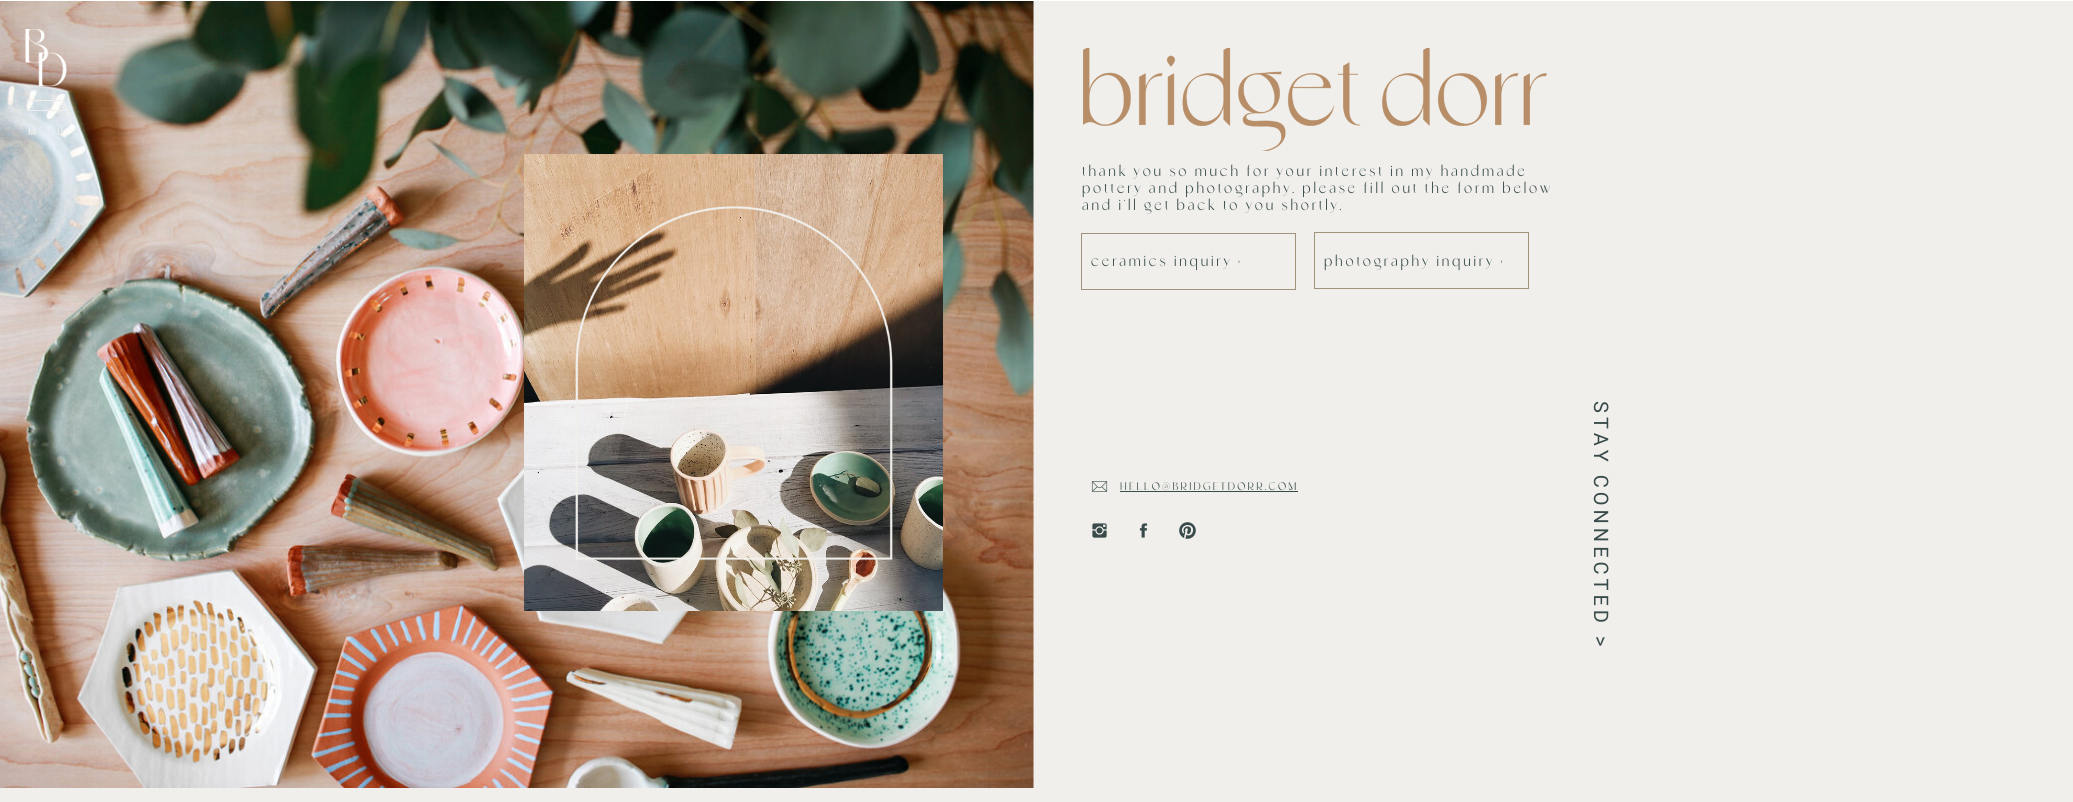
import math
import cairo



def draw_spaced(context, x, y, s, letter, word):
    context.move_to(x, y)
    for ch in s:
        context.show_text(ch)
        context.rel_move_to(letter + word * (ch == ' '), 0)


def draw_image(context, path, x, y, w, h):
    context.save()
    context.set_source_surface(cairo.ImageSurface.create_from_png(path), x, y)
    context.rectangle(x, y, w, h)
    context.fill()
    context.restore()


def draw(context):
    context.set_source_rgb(1, 1, 1)
    context.paint()
    context.set_source_rgb(227 / 255, 227 / 255, 227 / 255)
    context.rectangle(1037, 0, 1, 1)
    context.fill()
    context.set_source_rgb(240 / 255, 239 / 255, 235 / 255)
    context.rectangle(0, 1, 2073, 801)
    context.fill()
    draw_image(context, "images/2.png", 0, 1, 1034, 787)
    draw_image(context, "images/1.png", 25, 29, 42, 57)
    context.rectangle(27, 100, 38, 1)
    context.fill()
    context.rectangle(27, 110, 38, 1)
    context.fill()
    draw_image(context, "images/3.png", 1083, 48, 464, 103)
    draw_image(context, "images/4.png", 524, 154, 419, 457)
    draw_image(context, "images/5.png", 575, 206, 318, 354)
    context.rectangle(1081.5, 233.5, 214, 56)
    context.set_source_rgb(161 / 255, 148 / 255, 124 / 255)
    context.set_line_width(1)
    context.stroke()
    context.rectangle(1314.5, 232.5, 214, 56)
    context.stroke()
    draw_image(context, "images/6.png", 1091, 481, 17, 11)
    context.set_source_rgb(56 / 255, 75 / 255, 74 / 255)
    context.rectangle(1120, 491, 178, 1)
    context.fill()
    draw_image(context, "images/7.png", 1092, 523, 15, 15)
    draw_image(context, "images/8.png", 1139, 523, 9, 15)
    draw_image(context, "images/9.png", 1179, 522, 17, 17)
    context.select_font_face("Roboto", cairo.FontSlant.NORMAL, cairo.FontWeight.BOLD)
    context.set_font_size(9)
    context.set_source_rgb(240 / 255, 239 / 255, 235 / 255)
    draw_spaced(context, 28, 135, "M", 3, 0)
    draw_spaced(context, 57, 135, "U", 3, 0)
    context.select_font_face("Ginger")
    context.set_font_size(14)
    context.set_source_rgb(56 / 255, 75 / 255, 74 / 255)
    draw_spaced(context, 1082, 176, "thank you so much for your interest in my handmade", 2.8, 0)
    draw_spaced(context, 1082, 193, "pottery and photography. please fill out the form below", 2.8, 0)
    draw_spaced(context, 1082, 210, "and i’ll get back to you shortly.", 2.8, 0)
    draw_spaced(context, 1091, 266, "ceramics inquiry >", 2.8, 0)
    draw_spaced(context, 1324, 266, "photography inquiry >", 2.8, 0)
    context.set_font_size(11)
    draw_spaced(context, 1120, 490, "HELLO@BRIDGETDORR.COM", 2.2, 0)
    context.select_font_face("Roboto")
    context.set_font_size(20)
    context.save()
    context.translate(1594, 401)
    context.rotate(90 * math.pi / 180)
    draw_spaced(context, 0, 0, "STAY CONNECTED >", 4, 0)
    context.restore()


surface = cairo.ImageSurface(cairo.Format.RGB24, 2073, 802)
context = cairo.Context(surface)
options = cairo.FontOptions()
options.set_hint_metrics(cairo.HintMetrics.OFF)
options.set_hint_style(cairo.HintStyle.NONE)
context.set_font_options(options)
context.set_miter_limit(4)
draw(context)
surface.write_to_png("out.png")
